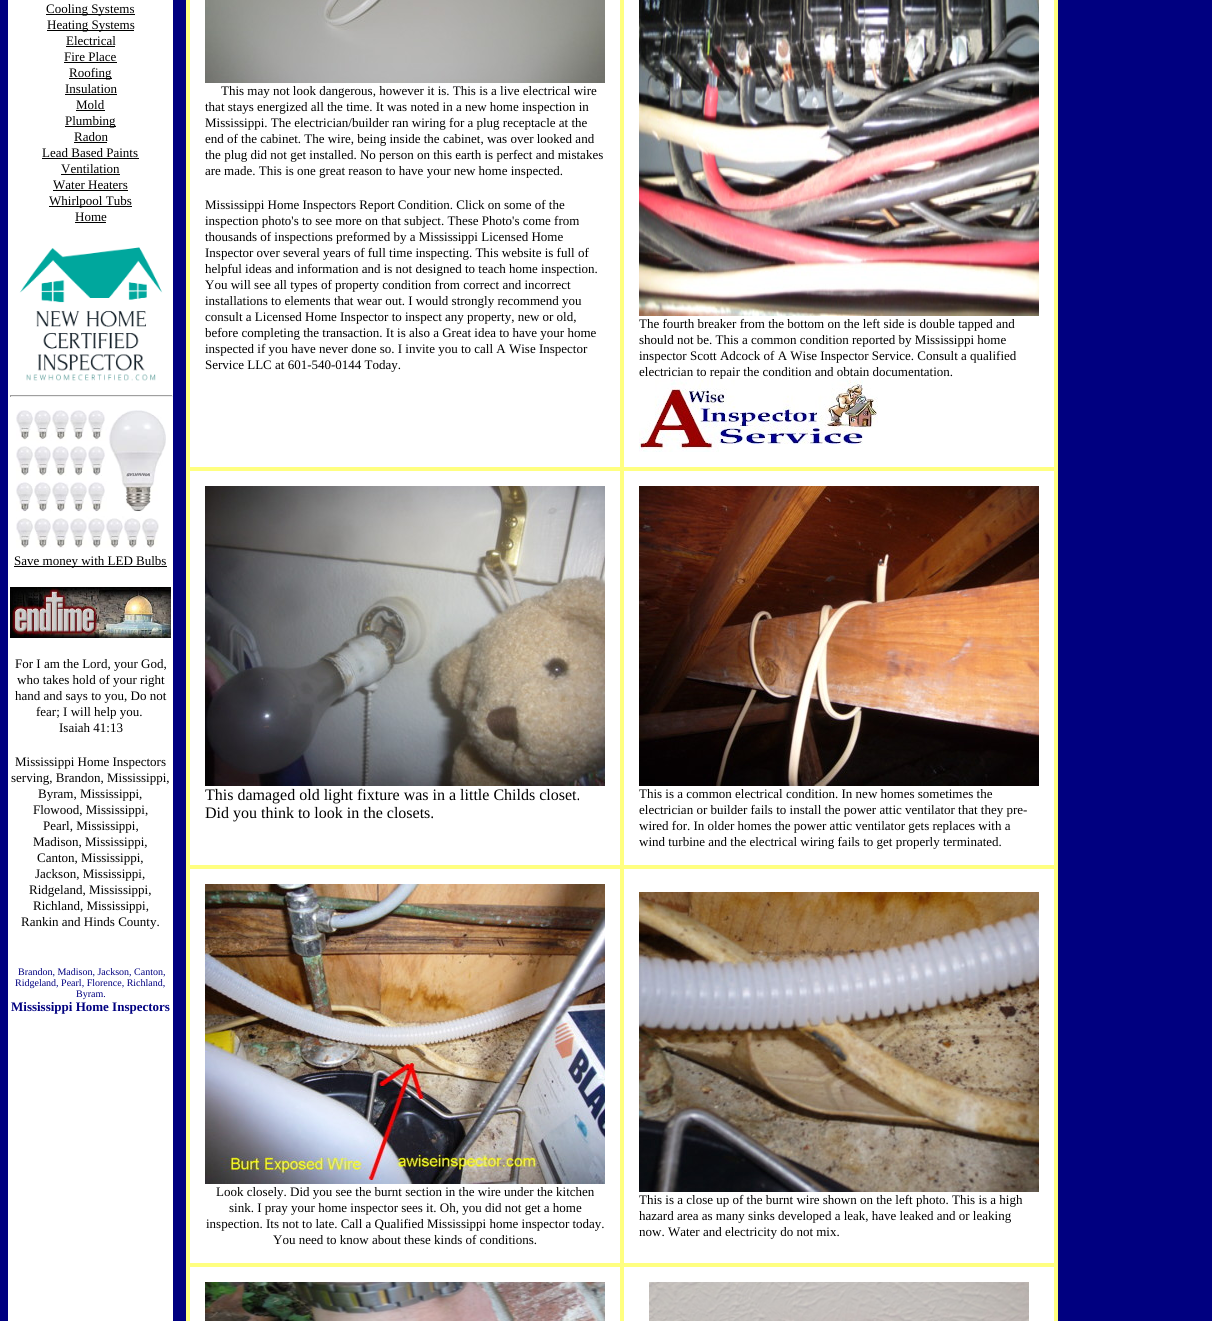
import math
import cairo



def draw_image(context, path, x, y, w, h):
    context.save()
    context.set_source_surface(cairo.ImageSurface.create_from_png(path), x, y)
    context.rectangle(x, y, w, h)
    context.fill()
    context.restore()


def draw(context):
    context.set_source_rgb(0, 0, 128 / 255)
    context.paint()
    context.set_source_rgb(1, 1, 1)
    context.rectangle(8, 0, 165, 1321)
    context.fill()
    context.set_source_rgb(0, 0, 0)
    context.rectangle(46, 14, 89, 1)
    context.fill()
    context.rectangle(47, 30, 87, 1)
    context.fill()
    context.rectangle(66, 46, 49, 1)
    context.fill()
    context.rectangle(64, 62, 53, 1)
    context.fill()
    context.rectangle(69, 78, 43, 1)
    context.fill()
    context.rectangle(65, 94, 52, 1)
    context.fill()
    context.rectangle(76, 110, 29, 1)
    context.fill()
    context.rectangle(65, 126, 51, 1)
    context.fill()
    context.rectangle(74, 142, 33, 1)
    context.fill()
    context.rectangle(42, 158, 97, 1)
    context.fill()
    context.rectangle(61, 174, 59, 1)
    context.fill()
    context.rectangle(53, 190, 75, 1)
    context.fill()
    context.rectangle(49, 206, 83, 1)
    context.fill()
    context.rectangle(75, 222, 31, 1)
    context.fill()
    draw_image(context, "images/1.png", 19, 247, 144, 134)
    context.set_source_rgb(159 / 255, 159 / 255, 159 / 255)
    context.rectangle(10, 395, 163, 1)
    context.fill()
    context.set_source_rgb(238 / 255, 238 / 255, 238 / 255)
    context.rectangle(172, 395, 1, 2)
    context.fill()
    context.rectangle(10, 396, 163, 1)
    context.fill()
    context.set_source_rgb(159 / 255, 159 / 255, 159 / 255)
    context.rectangle(10, 395, 1, 2)
    context.fill()
    draw_image(context, "images/2.png", 16, 410, 150, 138)
    context.set_source_rgb(0, 0, 0)
    context.rectangle(14, 566, 153, 1)
    context.fill()
    draw_image(context, "images/3.png", 10, 587, 161, 51)
    context.set_source_rgb(1, 1, 128 / 255)
    context.rectangle(186, 0, 872, 1321)
    context.fill()
    context.set_source_rgb(1, 1, 1)
    context.rectangle(190, 0, 430, 467)
    context.fill()
    draw_image(context, "images/4.png", 205, 0, 400, 83)
    context.rectangle(624, 0, 430, 467)
    context.fill()
    draw_image(context, "images/5.png", 639, 0, 400, 316)
    draw_image(context, "images/6.png", 639, 380, 239, 72)
    context.rectangle(190, 471, 430, 394)
    context.fill()
    draw_image(context, "images/7.png", 205, 486, 400, 300)
    context.rectangle(624, 471, 430, 394)
    context.fill()
    draw_image(context, "images/8.png", 639, 486, 400, 300)
    context.rectangle(190, 869, 430, 394)
    context.fill()
    draw_image(context, "images/9.png", 205, 884, 400, 300)
    context.rectangle(624, 869, 430, 394)
    context.fill()
    draw_image(context, "images/10.png", 639, 892, 400, 300)
    context.rectangle(190, 1267, 430, 54)
    context.fill()
    draw_image(context, "images/11.png", 205, 1282, 400, 39)
    context.rectangle(624, 1267, 430, 54)
    context.fill()
    draw_image(context, "images/12.png", 649, 1282, 380, 39)
    context.select_font_face("Liberation Serif")
    context.set_font_size(13)
    context.set_source_rgb(0, 0, 0)
    context.move_to(46, 13)
    context.show_text("Cooling Systems")
    context.move_to(47, 29)
    context.show_text("Heating Systems")
    context.move_to(66, 45)
    context.show_text("Electrical")
    context.move_to(64, 61)
    context.show_text("Fire Place")
    context.move_to(69, 77)
    context.show_text("Roofing")
    context.move_to(65, 93)
    context.show_text("Insulation")
    context.move_to(76, 109)
    context.show_text("Mold")
    context.move_to(65, 125)
    context.show_text("Plumbing")
    context.move_to(74, 141)
    context.show_text("Radon")
    context.move_to(42, 157)
    context.show_text("Lead Based Paints")
    context.move_to(61, 173)
    context.show_text("Ventilation")
    context.move_to(53, 189)
    context.show_text("Water Heaters")
    context.move_to(49, 205)
    context.show_text("Whirlpool Tubs")
    context.move_to(75, 221)
    context.show_text("Home")
    context.move_to(14, 565)
    context.show_text("Save money with LED Bulbs")
    context.move_to(15, 668)
    context.show_text("For I am the Lord, your God,")
    context.move_to(17, 684)
    context.show_text("who takes hold of your right")
    context.move_to(15, 700)
    context.show_text("hand and says to you, Do not")
    context.move_to(36, 716)
    context.show_text("fear; I will help you.")
    context.move_to(59, 732)
    context.show_text("Isaiah 41:13")
    context.move_to(15, 766)
    context.show_text("Mississippi Home Inspectors")
    context.move_to(11, 782)
    context.show_text("serving, Brandon, Mississippi,")
    context.move_to(38, 798)
    context.show_text("Byram, Mississippi,")
    context.move_to(33, 814)
    context.show_text("Flowood, Mississippi,")
    context.move_to(43, 830)
    context.show_text("Pearl, Mississippi,")
    context.move_to(33, 846)
    context.show_text("Madison, Mississippi,")
    context.move_to(37, 862)
    context.show_text("Canton, Mississippi,")
    context.move_to(35, 878)
    context.show_text("Jackson, Mississippi,")
    context.move_to(29, 894)
    context.show_text("Ridgeland, Mississippi,")
    context.move_to(33, 910)
    context.show_text("Richland, Mississippi,")
    context.move_to(21, 926)
    context.show_text("Rankin and Hinds County.")
    context.set_font_size(10)
    context.set_source_rgb(0, 0, 128 / 255)
    context.move_to(18, 975)
    context.show_text("Brandon, Madison, Jackson, Canton,")
    context.move_to(15, 986)
    context.show_text("Ridgeland, Pearl, Florence, Richland,")
    context.move_to(76, 997)
    context.show_text("Byram.")
    context.select_font_face("Liberation Serif", cairo.FontSlant.NORMAL, cairo.FontWeight.BOLD)
    context.set_font_size(13)
    context.move_to(11, 1011)
    context.show_text("Mississippi Home Inspectors")
    context.select_font_face("Liberation Serif")
    context.set_source_rgb(0, 0, 0)
    context.move_to(221, 95)
    context.show_text("This may not look dangerous, however it is. This is a live electrical wire")
    context.move_to(205, 111)
    context.show_text("that stays energized all the time. It was noted in a new home inspection in")
    context.move_to(205, 127)
    context.show_text("Mississippi. The electrician/builder ran wiring for a plug receptacle at the")
    context.move_to(205, 143)
    context.show_text("end of the cabinet. The wire, being inside the cabinet, was over looked and")
    context.move_to(205, 159)
    context.show_text("the plug did not get installed. No person on this earth is perfect and mistakes")
    context.move_to(205, 175)
    context.show_text("are made. This is one great reason to have your new home inspected.")
    context.move_to(205, 209)
    context.show_text("Mississippi Home Inspectors Report Condition. Click on some of the")
    context.move_to(205, 225)
    context.show_text("inspection photo's to see more on that subject. These Photo's come from")
    context.move_to(205, 241)
    context.show_text("thousands of inspections preformed by a Mississippi Licensed Home")
    context.move_to(205, 257)
    context.show_text("Inspector over several years of full time inspecting. This website is full of")
    context.move_to(205, 273)
    context.show_text("helpful ideas and information and is not designed to teach home inspection.")
    context.move_to(205, 289)
    context.show_text("You will see all types of property condition from correct and incorrect")
    context.move_to(205, 305)
    context.show_text("installations to elements that wear out. I would strongly recommend you")
    context.move_to(205, 321)
    context.show_text("consult a Licensed Home Inspector to inspect any property, new or old,")
    context.move_to(205, 337)
    context.show_text("before completing the transaction. It is also a Great idea to have your home")
    context.move_to(205, 353)
    context.show_text("inspected if you have never done so. I invite you to call A Wise Inspector")
    context.move_to(205, 369)
    context.show_text("Service LLC at 601-540-0144 Today.")
    context.move_to(639, 328)
    context.show_text("The fourth breaker from the bottom on the left side is double tapped and")
    context.move_to(639, 344)
    context.show_text("should not be. This a common condition reported by Mississippi home")
    context.move_to(639, 360)
    context.show_text("inspector Scott Adcock of A Wise Inspector Service. Consult a qualified")
    context.move_to(639, 376)
    context.show_text("electrician to repair the condition and obtain documentation.")
    context.set_font_size(16)
    context.move_to(205, 800)
    context.show_text("This damaged old light fixture was in a little Childs closet.")
    context.move_to(205, 818)
    context.show_text("Did you think to look in the closets.")
    context.set_font_size(13)
    context.move_to(639, 798)
    context.show_text("This is a common electrical condition. In new homes sometimes the")
    context.move_to(639, 814)
    context.show_text("electrician or builder fails to install the power attic ventilator that they pre-")
    context.move_to(639, 830)
    context.show_text("wired for. In older homes the power attic ventilator gets replaces with a")
    context.move_to(639, 846)
    context.show_text("wind turbine and the electrical wiring fails to get properly terminated.")
    context.move_to(216, 1196)
    context.show_text("Look closely. Did you see the burnt section in the wire under the kitchen")
    context.move_to(229, 1212)
    context.show_text("sink. I pray your home inspector sees it. Oh, you did not get a home")
    context.move_to(206, 1228)
    context.show_text("inspection. Its not to late. Call a Qualified Mississippi home inspector today.")
    context.move_to(273, 1244)
    context.show_text("You need to know about these kinds of conditions.")
    context.move_to(639, 1204)
    context.show_text("This is a close up of the burnt wire shown on the left photo. This is a high")
    context.move_to(639, 1220)
    context.show_text("hazard area as many sinks developed a leak, have leaked and or leaking")
    context.move_to(639, 1236)
    context.show_text("now. Water and electricity do not mix.")


surface = cairo.ImageSurface(cairo.Format.RGB24, 1212, 1321)
context = cairo.Context(surface)
options = cairo.FontOptions()
options.set_hint_metrics(cairo.HintMetrics.OFF)
options.set_hint_style(cairo.HintStyle.NONE)
context.set_font_options(options)
context.set_miter_limit(4)
draw(context)
surface.write_to_png("out.png")
